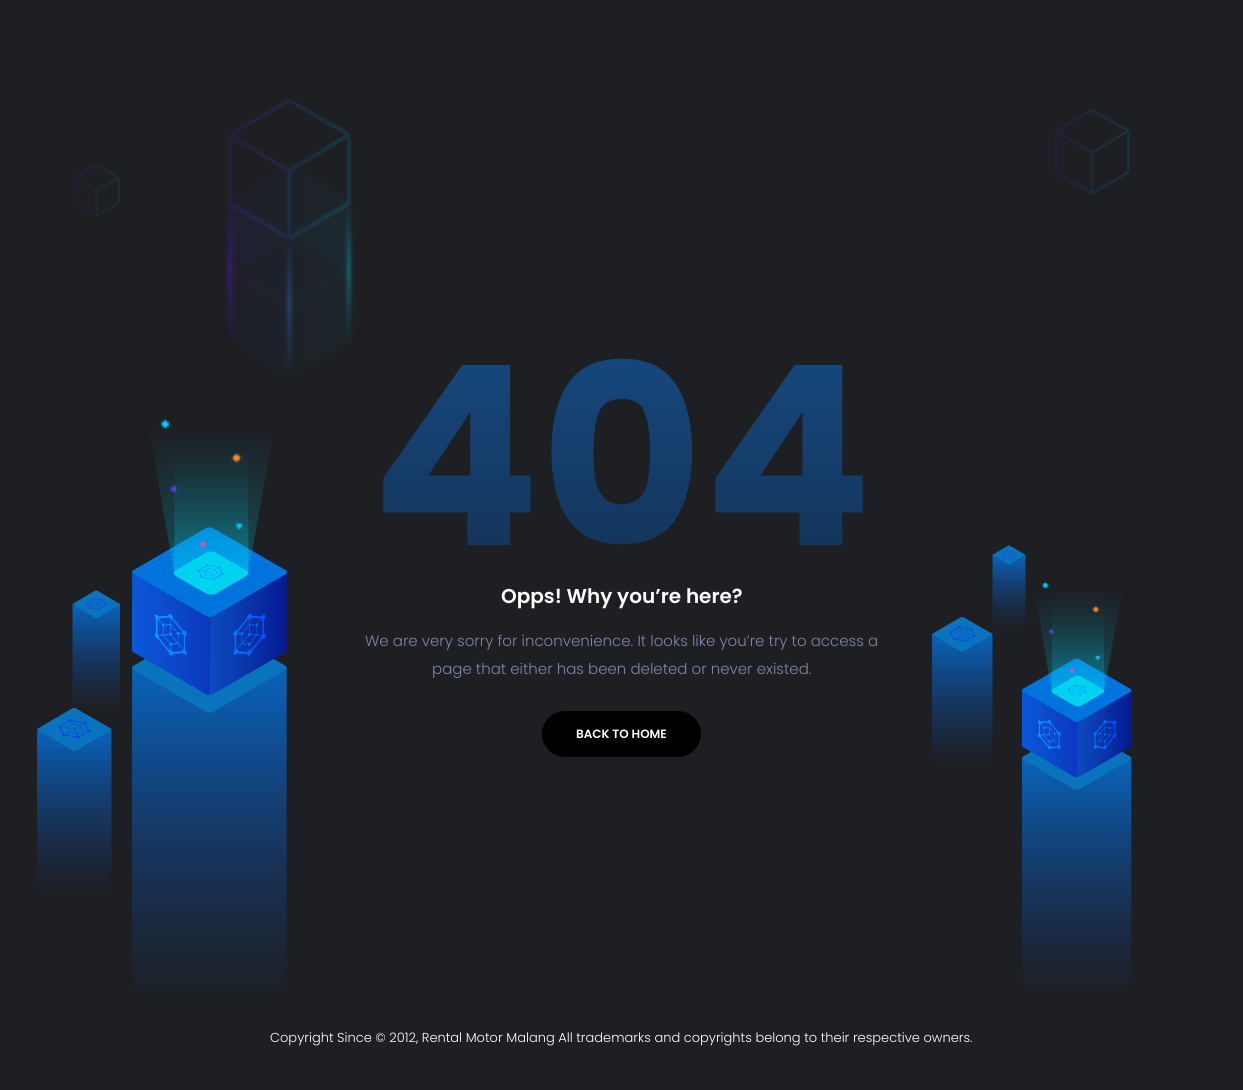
import math
import cairo



def rounded_rect(context, x, y, w, h, r):
    context.new_sub_path()
    for i, (u, v) in enumerate([(x + w - r, y + h - r), (x + r, y + h - r), (x + r, y + r), (x + w - r, y + r)]):
        context.arc(u, v, r, i * math.pi / 2, (i + 1) * math.pi / 2)
    context.close_path()


def draw_image(context, path, x, y, w, h):
    context.save()
    context.set_source_surface(cairo.ImageSurface.create_from_png(path), x, y)
    context.rectangle(x, y, w, h)
    context.fill()
    context.restore()


def draw(context):
    context.set_source_rgb(29 / 255, 31 / 255, 35 / 255)
    context.paint()
    draw_image(context, "images/1.png", 73, 99, 1057, 275)
    draw_image(context, "images/2.png", 37, 418, 250, 576)
    draw_image(context, "images/3.png", 932, 545, 200, 444)
    context.set_source_rgb(0, 0, 0)
    rounded_rect(context, 542, 711, 159, 46, 23)
    context.fill()
    context.select_font_face("Poppins", cairo.FontSlant.NORMAL, cairo.FontWeight.BOLD)
    context.set_font_size(250)
    gradient = cairo.LinearGradient(622, 282, 622, 633)
    gradient.add_color_stop_rgba(0, 22 / 255, 78 / 255, 137 / 255, 1)
    gradient.add_color_stop_rgba(1, 19 / 255, 45 / 255, 77 / 255, 1)
    context.set_source(gradient)
    context.move_to(371, 545)
    context.show_text("404")
    context.select_font_face("Poppins SemiBold")
    context.set_font_size(20)
    context.set_source_rgb(1, 1, 1)
    context.move_to(501, 603)
    context.show_text("Opps! Why you’re here?")
    context.select_font_face("Poppins Light")
    context.set_font_size(15)
    context.set_source_rgb(130 / 255, 132 / 255, 165 / 255)
    context.move_to(365, 646)
    context.show_text("We are very sorry for inconvenience. It looks like you’re try to access a")
    context.move_to(432, 674)
    context.show_text("page that either has been deleted or never existed.")
    context.select_font_face("Poppins SemiBold")
    context.set_font_size(12)
    context.set_source_rgb(1, 1, 1)
    context.move_to(576, 738)
    context.show_text("BACK TO HOME")
    context.select_font_face("Poppins Light")
    context.set_font_size(13)
    context.move_to(270, 1042)
    context.show_text("Copyright Since © 2012, Rental Motor Malang All trademarks and copyrights belong to their respective owners.")


surface = cairo.ImageSurface(cairo.Format.RGB24, 1243, 1090)
context = cairo.Context(surface)
options = cairo.FontOptions()
options.set_hint_metrics(cairo.HintMetrics.OFF)
options.set_hint_style(cairo.HintStyle.NONE)
context.set_font_options(options)
context.set_miter_limit(4)
draw(context)
surface.write_to_png("out.png")
